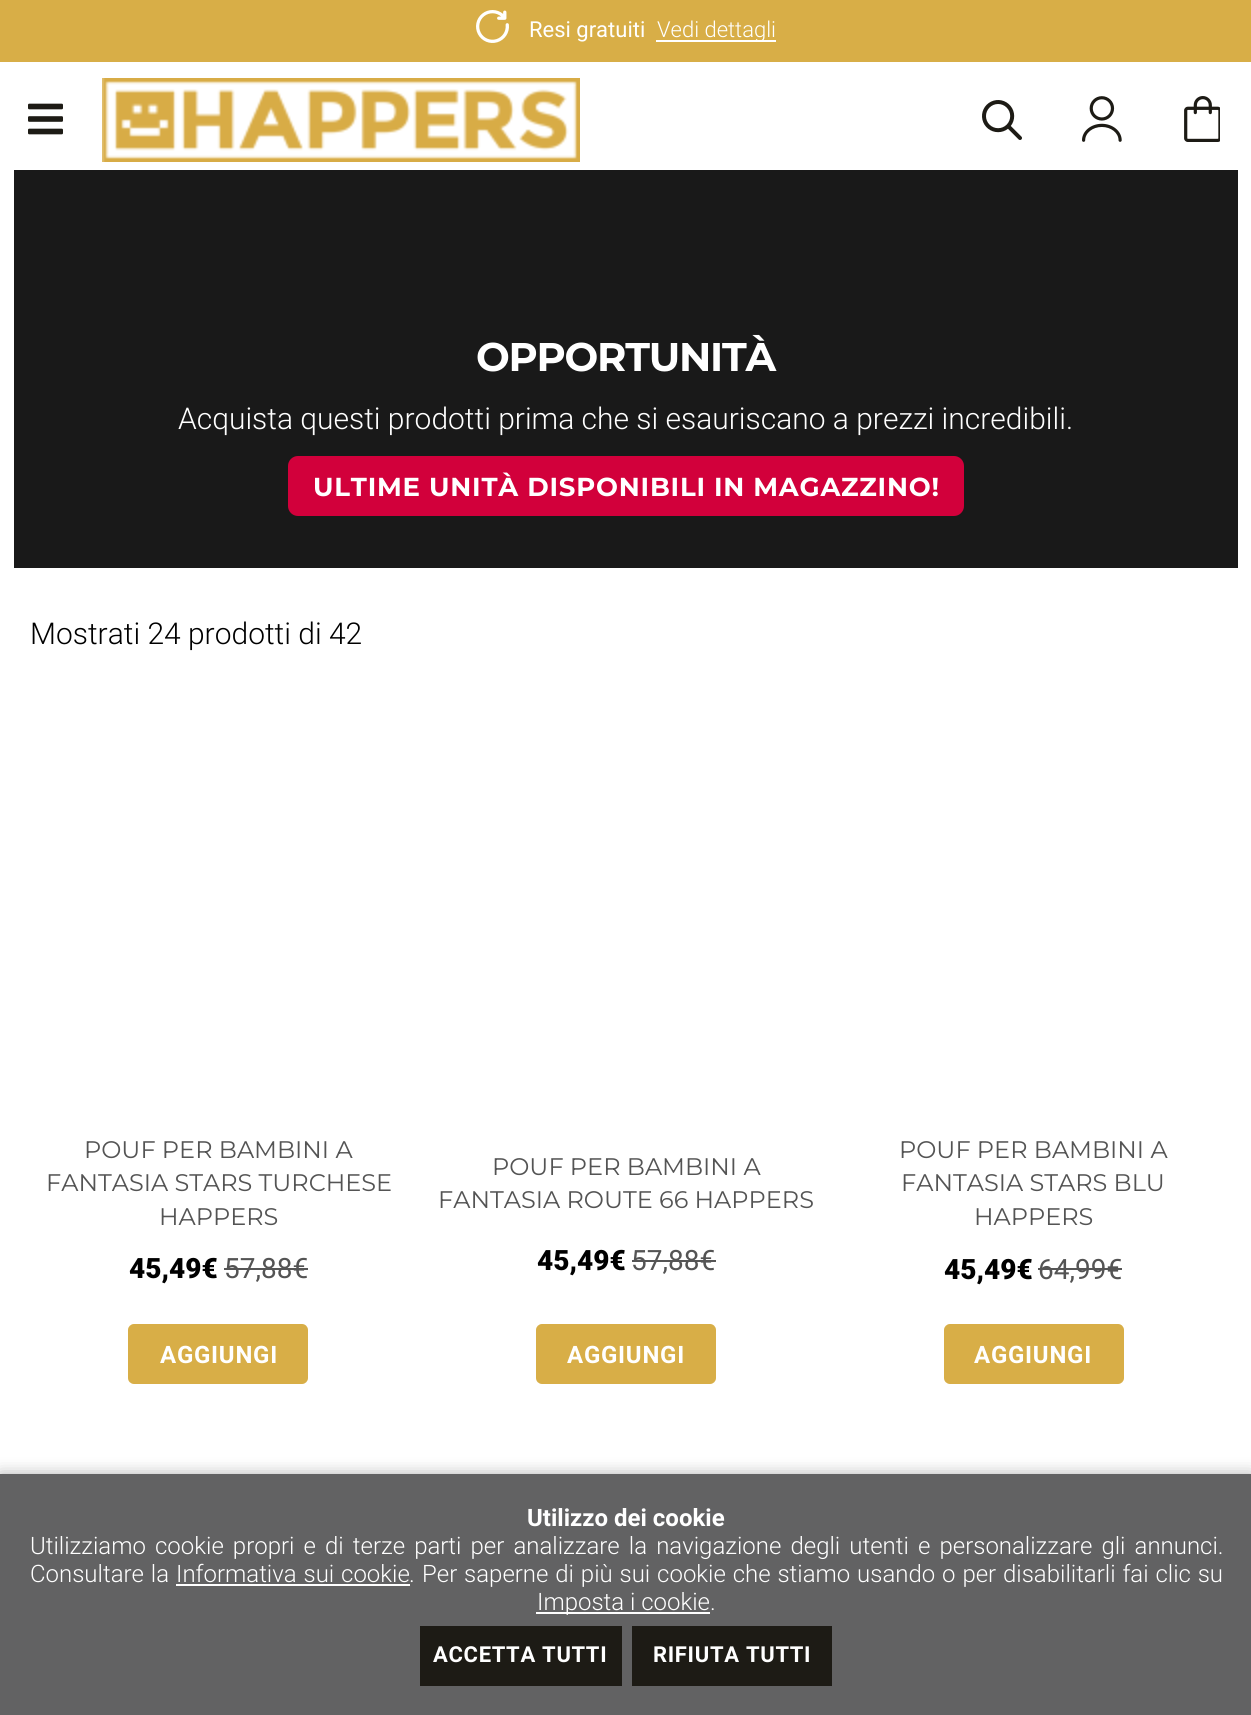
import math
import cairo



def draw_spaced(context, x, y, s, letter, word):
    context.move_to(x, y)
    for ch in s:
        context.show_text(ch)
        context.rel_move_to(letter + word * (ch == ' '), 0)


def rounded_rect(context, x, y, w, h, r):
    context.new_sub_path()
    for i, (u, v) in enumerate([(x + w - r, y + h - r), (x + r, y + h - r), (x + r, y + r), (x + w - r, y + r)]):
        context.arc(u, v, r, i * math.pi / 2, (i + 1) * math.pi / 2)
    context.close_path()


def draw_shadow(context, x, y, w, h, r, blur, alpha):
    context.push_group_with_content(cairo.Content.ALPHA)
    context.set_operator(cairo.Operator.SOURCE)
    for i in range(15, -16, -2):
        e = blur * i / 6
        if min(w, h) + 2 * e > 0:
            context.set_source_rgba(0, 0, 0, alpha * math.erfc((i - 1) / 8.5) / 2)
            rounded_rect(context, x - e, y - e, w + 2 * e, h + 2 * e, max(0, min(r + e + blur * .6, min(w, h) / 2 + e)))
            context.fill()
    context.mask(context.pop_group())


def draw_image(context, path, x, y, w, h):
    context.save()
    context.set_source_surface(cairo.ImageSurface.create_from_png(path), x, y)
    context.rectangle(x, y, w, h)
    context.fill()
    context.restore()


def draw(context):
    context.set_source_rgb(1, 1, 1)
    context.paint()
    context.set_source_rgb(216 / 255, 174 / 255, 71 / 255)
    context.rectangle(0, 0, 1251, 62)
    context.fill()
    draw_image(context, "images/1.png", 476, 10, 33, 33)
    context.set_source_rgb(1, 1, 1)
    context.rectangle(656, 40, 120, 2)
    context.fill()
    draw_image(context, "images/2.png", 28, 103, 35, 32)
    draw_image(context, "images/3.png", 102, 78, 478, 84)
    draw_image(context, "images/4.png", 982, 100, 40, 40)
    draw_image(context, "images/5.png", 1082, 96, 40, 46)
    draw_image(context, "images/6.png", 1184, 96, 36, 46)
    context.set_source_rgb(25 / 255, 25 / 255, 25 / 255)
    context.rectangle(14, 170, 1224, 398)
    context.fill()
    context.set_source_rgb(210 / 255, 0, 59 / 255)
    rounded_rect(context, 290, 458, 672, 56, 8)
    context.fill_preserve()
    context.set_line_width(4)
    context.stroke()
    context.set_source_rgb(216 / 255, 174 / 255, 71 / 255)
    rounded_rect(context, 130, 1326, 176, 56, 4)
    context.fill_preserve()
    context.stroke()
    rounded_rect(context, 538, 1326, 176, 56, 4)
    context.fill_preserve()
    context.stroke()
    rounded_rect(context, 946, 1326, 176, 56, 4)
    context.fill_preserve()
    context.stroke()
    context.set_source_rgb(0, 0, 0)
    draw_shadow(context, 0, 1474, 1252, 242, 0, 8, 0.3)
    context.set_source_rgb(98 / 255, 98 / 255, 99 / 255)
    context.rectangle(0, 1474, 1251, 241)
    context.fill()
    context.set_source_rgb(1, 1, 1)
    context.rectangle(176, 1584, 234, 2)
    context.fill()
    context.rectangle(536, 1612, 174, 2)
    context.fill()
    context.set_source_rgb(29 / 255, 27 / 255, 21 / 255)
    context.rectangle(420, 1626, 202, 60)
    context.fill()
    context.rectangle(632, 1626, 200, 60)
    context.fill()
    context.select_font_face("Roboto")
    context.set_font_size(22)
    context.set_source_rgb(1, 1, 1)
    context.move_to(529, 37)
    context.show_text("Resi gratuiti")
    context.select_font_face("Roboto Light")
    context.move_to(657, 37)
    context.show_text("Vedi dettagli")
    context.select_font_face("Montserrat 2 Thin")
    context.set_font_size(40)
    draw_spaced(context, 476, 371, "OPPORTUNITÀ", -1.25, 0)
    context.select_font_face("Roboto Light")
    context.set_font_size(30)
    context.move_to(178, 429)
    context.show_text("Acquista questi prodotti prima che si esauriscano a prezzi incredibili.")
    context.select_font_face("Montserrat 2 Thin")
    context.set_font_size(26)
    draw_spaced(context, 313, 496, "ULTIME UNITÀ DISPONIBILI IN MAGAZZINO!", 0.8, 0)
    context.select_font_face("Roboto Light")
    context.set_font_size(30)
    context.set_source_rgb(0, 0, 0)
    context.move_to(30, 644)
    context.show_text("Mostrati 24 prodotti di 42")
    context.select_font_face("Montserrat Thin")
    context.set_font_size(24)
    context.set_source_rgb(84 / 255, 84 / 255, 84 / 255)
    context.move_to(84, 1158)
    context.show_text("POUF PER BAMBINI A")
    context.move_to(46, 1191)
    context.show_text("FANTASIA STARS TURCHESE")
    context.move_to(159, 1225)
    context.show_text("HAPPERS")
    context.select_font_face("Roboto Black")
    context.set_font_size(28)
    context.set_source_rgb(0, 0, 0)
    context.move_to(129, 1278)
    context.show_text("45,49€")
    context.select_font_face("Roboto")
    context.set_source_rgb(84 / 255, 84 / 255, 84 / 255)
    context.move_to(224, 1278)
    context.show_text("57,88€")
    context.set_source_rgb(85 / 255, 85 / 255, 85 / 255)
    context.rectangle(224, 1268, 84, 2)
    context.fill()
    context.select_font_face("Roboto", cairo.FontSlant.NORMAL, cairo.FontWeight.BOLD)
    context.set_font_size(24)
    context.set_source_rgb(1, 1, 1)
    draw_spaced(context, 160, 1363, "AGGIUNGI", 0.75, 0)
    context.select_font_face("Montserrat Thin")
    context.set_source_rgb(84 / 255, 84 / 255, 84 / 255)
    context.move_to(492, 1175)
    context.show_text("POUF PER BAMBINI A")
    context.move_to(438, 1208)
    context.show_text("FANTASIA ROUTE 66 HAPPERS")
    context.select_font_face("Roboto Black")
    context.set_font_size(28)
    context.set_source_rgb(0, 0, 0)
    context.move_to(537, 1270)
    context.show_text("45,49€")
    context.select_font_face("Roboto")
    context.set_source_rgb(84 / 255, 84 / 255, 84 / 255)
    context.move_to(631, 1270)
    context.show_text("57,88€")
    context.set_source_rgb(85 / 255, 85 / 255, 85 / 255)
    context.rectangle(632, 1260, 84, 2)
    context.fill()
    context.select_font_face("Roboto", cairo.FontSlant.NORMAL, cairo.FontWeight.BOLD)
    context.set_font_size(24)
    context.set_source_rgb(1, 1, 1)
    draw_spaced(context, 567, 1363, "AGGIUNGI", 0.75, 0)
    context.select_font_face("Montserrat Thin")
    context.set_source_rgb(84 / 255, 84 / 255, 84 / 255)
    context.move_to(899, 1158)
    context.show_text("POUF PER BAMBINI A")
    context.move_to(901, 1191)
    context.show_text("FANTASIA STARS BLU")
    context.move_to(974, 1225)
    context.show_text("HAPPERS")
    context.select_font_face("Roboto Black")
    context.set_font_size(28)
    context.set_source_rgb(0, 0, 0)
    context.move_to(944, 1279)
    context.show_text("45,49€")
    context.select_font_face("Roboto")
    context.set_source_rgb(84 / 255, 84 / 255, 84 / 255)
    context.move_to(1038, 1279)
    context.show_text("64,99€")
    context.set_source_rgb(85 / 255, 85 / 255, 85 / 255)
    context.rectangle(1038, 1268, 84, 2)
    context.fill()
    context.select_font_face("Roboto", cairo.FontSlant.NORMAL, cairo.FontWeight.BOLD)
    context.set_font_size(24)
    context.set_source_rgb(1, 1, 1)
    draw_spaced(context, 974, 1363, "AGGIUNGI", 0.75, 0)
    context.move_to(527, 1526)
    context.show_text("Utilizzo dei cookie")
    context.select_font_face("Roboto Light")
    draw_spaced(context, 30, 1554, "Utilizziamo cookie propri e di terze parti per analizzare la navigazione degli utenti e personalizzare gli annunci.", 0, 3.25)
    draw_spaced(context, 30, 1582, "Consultare la", 0, 1)
    draw_spaced(context, 176, 1582, "Informativa sui cookie", 0, 1)
    context.move_to(409, 1582)
    context.show_text(".")
    draw_spaced(context, 422, 1582, "Per saperne di più sui cookie che stiamo usando o per disabilitarli fai clic su", 0, 1)
    context.move_to(537, 1610)
    context.show_text("Imposta i cookie.")
    context.select_font_face("Roboto", cairo.FontSlant.NORMAL, cairo.FontWeight.BOLD)
    context.set_font_size(22)
    draw_spaced(context, 433, 1662, "ACCETTA TUTTI", 0.7, 0)
    draw_spaced(context, 653, 1662, "RIFIUTA TUTTI", 0.7, 0)


surface = cairo.ImageSurface(cairo.Format.RGB24, 1251, 1715)
context = cairo.Context(surface)
options = cairo.FontOptions()
options.set_hint_metrics(cairo.HintMetrics.OFF)
options.set_hint_style(cairo.HintStyle.NONE)
context.set_font_options(options)
context.set_miter_limit(4)
draw(context)
surface.write_to_png("out.png")
